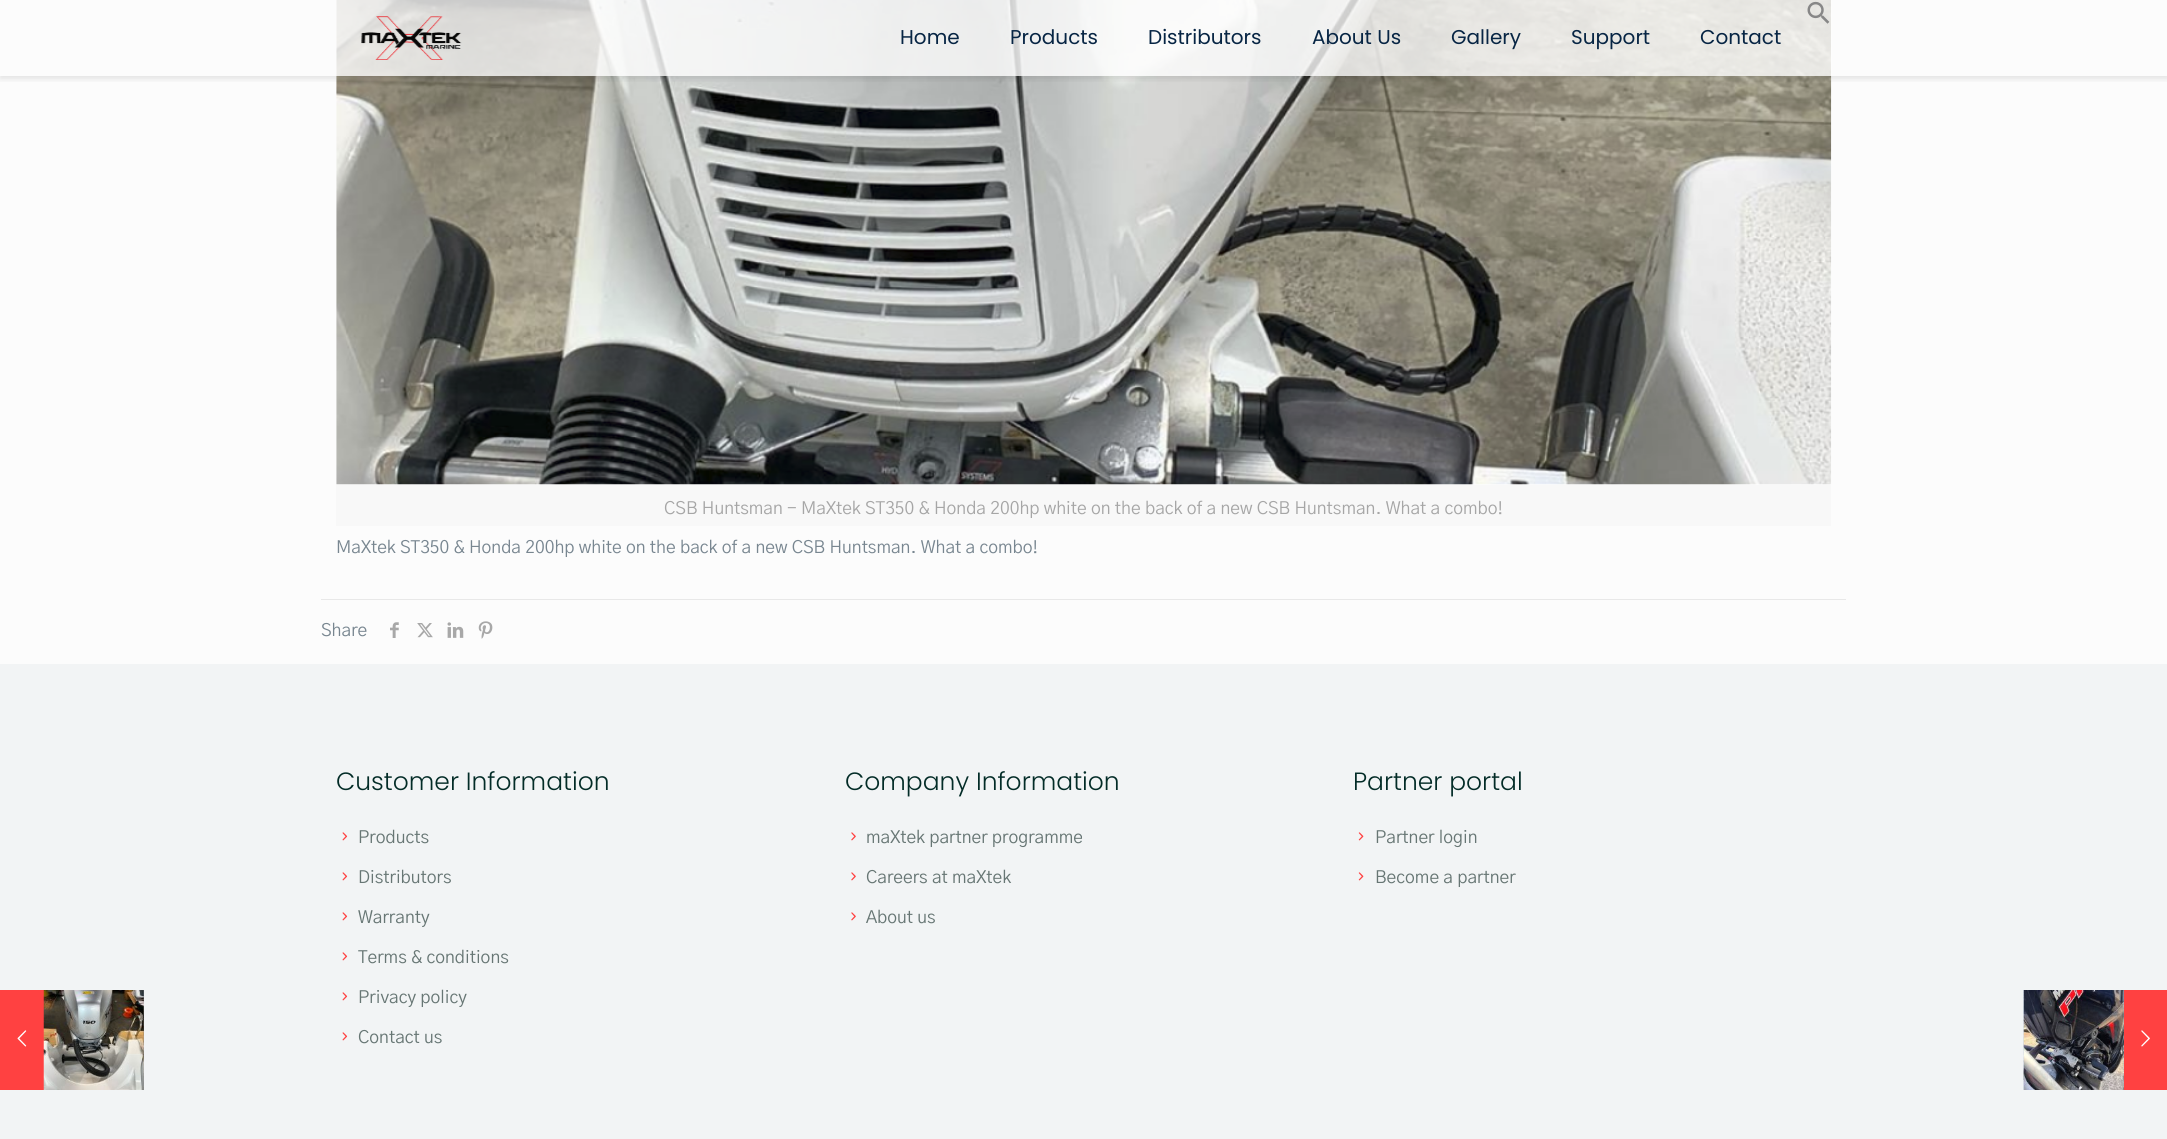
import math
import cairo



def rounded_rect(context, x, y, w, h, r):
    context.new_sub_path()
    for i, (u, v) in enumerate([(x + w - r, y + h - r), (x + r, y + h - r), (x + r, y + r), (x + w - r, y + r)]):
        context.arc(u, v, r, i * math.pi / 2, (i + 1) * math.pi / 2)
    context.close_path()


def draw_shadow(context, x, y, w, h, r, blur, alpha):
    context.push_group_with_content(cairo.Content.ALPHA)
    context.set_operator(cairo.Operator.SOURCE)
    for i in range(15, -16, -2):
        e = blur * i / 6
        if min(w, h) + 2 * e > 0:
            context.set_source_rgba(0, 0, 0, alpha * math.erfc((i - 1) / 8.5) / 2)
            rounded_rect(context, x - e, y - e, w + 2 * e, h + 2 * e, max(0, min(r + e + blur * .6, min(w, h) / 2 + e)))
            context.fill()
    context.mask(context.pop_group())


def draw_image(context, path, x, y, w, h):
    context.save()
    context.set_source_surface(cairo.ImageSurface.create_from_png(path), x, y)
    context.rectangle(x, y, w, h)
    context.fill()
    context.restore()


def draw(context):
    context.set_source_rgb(252 / 255, 252 / 255, 252 / 255)
    context.paint()
    context.set_source_rgb(242 / 255, 244 / 255, 245 / 255)
    context.rectangle(0, 664, 2167, 475)
    context.fill()
    context.set_source_rgb(1, 65 / 255, 65 / 255)
    context.rectangle(0, 990, 44, 100)
    context.fill()
    draw_image(context, "images/1.png", 17, 1030, 10, 17)
    draw_image(context, "images/13.png", 143, 990, 1, 100)
    draw_image(context, "images/2.png", 43, 990, 101, 100)
    draw_image(context, "images/5.png", 336, 0, 1496, 485)
    context.save()
    context.rectangle(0, 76, 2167, 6)
    context.clip()
    context.set_source_rgb(0, 0, 0)
    draw_shadow(context, 0, 3, 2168, 76, 0, 3, 0.1)
    context.restore()
    context.set_source_rgba(1, 1, 1, 0.78)
    context.rectangle(336, 0, 1496, 76)
    context.fill()
    draw_image(context, "images/3.png", 361, 16, 101, 44)
    draw_image(context, "images/4.png", 1807, 1, 23, 23)
    context.set_source_rgb(248 / 255, 248 / 255, 248 / 255)
    context.rectangle(336, 485, 1495, 41)
    context.fill()
    context.set_source_rgb(232 / 255, 232 / 255, 232 / 255)
    context.rectangle(321, 599, 1525, 1)
    context.fill()
    draw_image(context, "images/6.png", 390, 622, 9, 16)
    draw_image(context, "images/7.png", 417, 623, 16, 15)
    draw_image(context, "images/8.png", 447, 622, 17, 16)
    draw_image(context, "images/9.png", 478, 621, 15, 18)
    draw_image(context, "images/10.png", 342, 832, 6, 9)
    draw_image(context, "images/10.png", 342, 872, 6, 9)
    draw_image(context, "images/10.png", 342, 912, 6, 9)
    draw_image(context, "images/10.png", 342, 952, 6, 9)
    draw_image(context, "images/10.png", 342, 992, 6, 9)
    draw_image(context, "images/10.png", 342, 1032, 6, 9)
    draw_image(context, "images/11.png", 851, 832, 5, 9)
    draw_image(context, "images/11.png", 851, 872, 5, 9)
    draw_image(context, "images/11.png", 851, 912, 5, 9)
    draw_image(context, "images/12.png", 1358, 832, 6, 9)
    draw_image(context, "images/12.png", 1358, 872, 6, 9)
    draw_image(context, "images/14.png", 2023, 990, 101, 100)
    draw_image(context, "images/15.png", 2023, 990, 101, 100)
    context.set_source_rgb(1, 65 / 255, 65 / 255)
    context.rectangle(2124, 990, 43, 100)
    context.fill()
    draw_image(context, "images/16.png", 2141, 1030, 9, 17)
    context.select_font_face("Poppins")
    context.set_font_size(20)
    context.set_source_rgb(7 / 255, 37 / 255, 68 / 255)
    context.move_to(900, 44)
    context.show_text("Home")
    context.move_to(1010, 44)
    context.show_text("Products")
    context.move_to(1148, 44)
    context.show_text("Distributors")
    context.move_to(1312, 44)
    context.show_text("About Us")
    context.move_to(1451, 44)
    context.show_text("Gallery")
    context.move_to(1571, 44)
    context.show_text("Support")
    context.move_to(1700, 44)
    context.show_text("Contact")
    context.select_font_face("Gothic A1")
    context.set_font_size(17.5)
    context.set_source_rgb(166 / 255, 166 / 255, 166 / 255)
    context.move_to(664, 514)
    context.show_text("CSB Huntsman - MaXtek ST350 & Honda 200hp white on the back of a new CSB Huntsman. What a combo!")
    context.set_source_rgb(120 / 255, 134 / 255, 144 / 255)
    context.move_to(336, 553)
    context.show_text("MaXtek ST350 & Honda 200hp white on the back of a new CSB Huntsman. What a combo!")
    context.move_to(321, 636)
    context.show_text("Share")
    context.select_font_face("Poppins Light")
    context.set_font_size(25)
    context.set_source_rgb(3 / 255, 44 / 255, 39 / 255)
    context.move_to(336, 790)
    context.show_text("Customer Information")
    context.select_font_face("Gothic A1")
    context.set_font_size(17.5)
    context.set_source_rgb(103 / 255, 118 / 255, 116 / 255)
    context.move_to(358, 843)
    context.show_text("Products")
    context.move_to(358, 883)
    context.show_text("Distributors")
    context.move_to(358, 923)
    context.show_text("Warranty")
    context.move_to(358, 963)
    context.show_text("Terms & conditions")
    context.move_to(358, 1003)
    context.show_text("Privacy policy")
    context.move_to(358, 1043)
    context.show_text("Contact us")
    context.select_font_face("Poppins Light")
    context.set_font_size(25)
    context.set_source_rgb(3 / 255, 44 / 255, 39 / 255)
    context.move_to(845, 790)
    context.show_text("Company Information")
    context.select_font_face("Gothic A1")
    context.set_font_size(17.5)
    context.set_source_rgb(103 / 255, 118 / 255, 116 / 255)
    context.move_to(866, 843)
    context.show_text("maXtek partner programme")
    context.move_to(866, 883)
    context.show_text("Careers at maXtek")
    context.move_to(866, 923)
    context.show_text("About us")
    context.select_font_face("Poppins Light")
    context.set_font_size(25)
    context.set_source_rgb(3 / 255, 44 / 255, 39 / 255)
    context.move_to(1353, 790)
    context.show_text("Partner portal")
    context.select_font_face("Gothic A1")
    context.set_font_size(17.5)
    context.set_source_rgb(103 / 255, 118 / 255, 116 / 255)
    context.move_to(1375, 843)
    context.show_text("Partner login")
    context.move_to(1375, 883)
    context.show_text("Become a partner")


surface = cairo.ImageSurface(cairo.Format.RGB24, 2167, 1139)
context = cairo.Context(surface)
options = cairo.FontOptions()
options.set_hint_metrics(cairo.HintMetrics.OFF)
options.set_hint_style(cairo.HintStyle.NONE)
context.set_font_options(options)
context.set_miter_limit(4)
draw(context)
surface.write_to_png("out.png")
